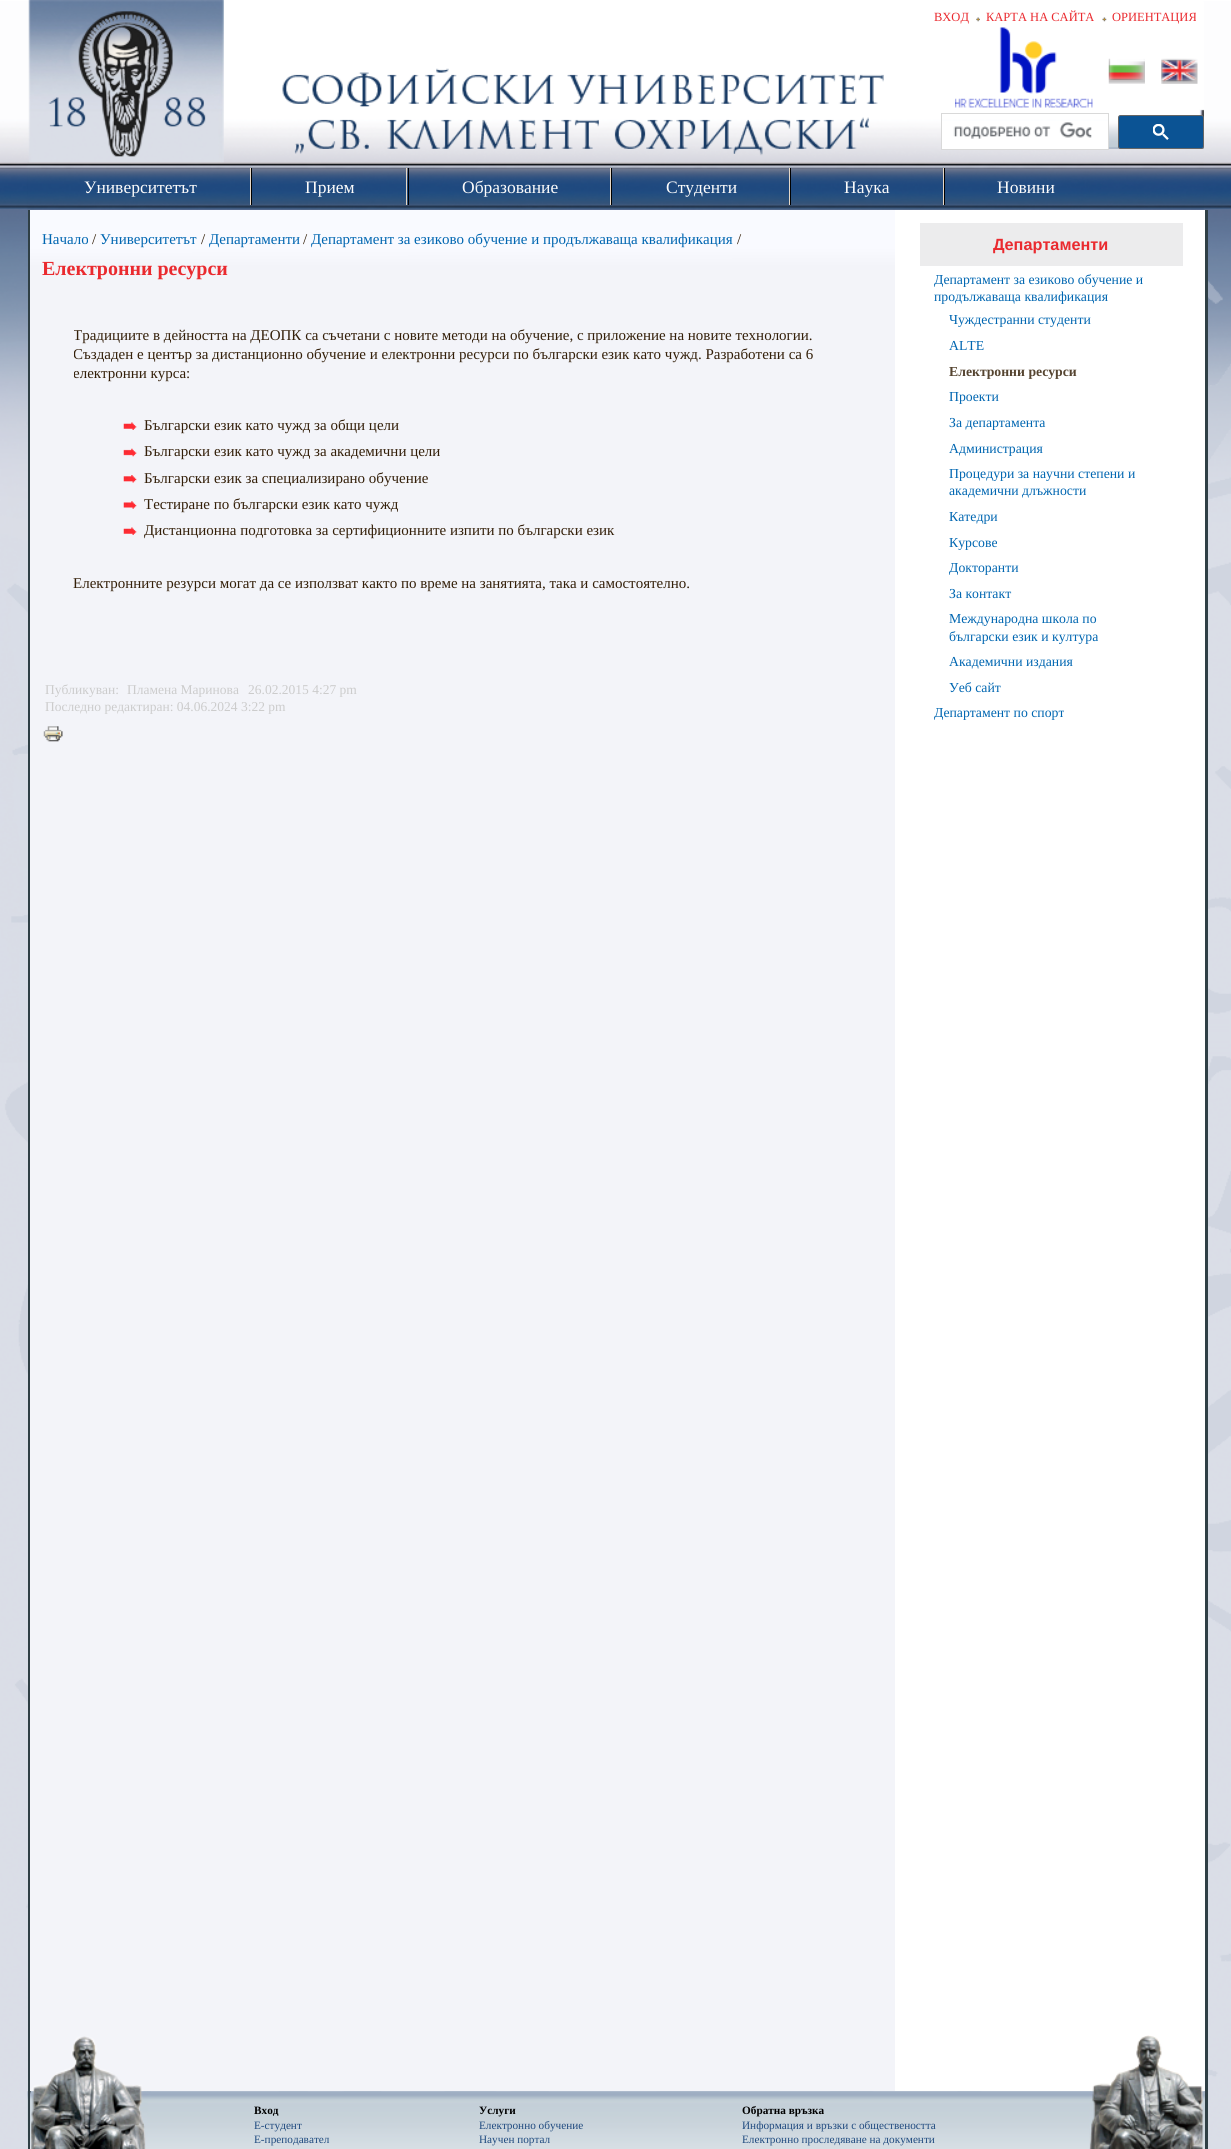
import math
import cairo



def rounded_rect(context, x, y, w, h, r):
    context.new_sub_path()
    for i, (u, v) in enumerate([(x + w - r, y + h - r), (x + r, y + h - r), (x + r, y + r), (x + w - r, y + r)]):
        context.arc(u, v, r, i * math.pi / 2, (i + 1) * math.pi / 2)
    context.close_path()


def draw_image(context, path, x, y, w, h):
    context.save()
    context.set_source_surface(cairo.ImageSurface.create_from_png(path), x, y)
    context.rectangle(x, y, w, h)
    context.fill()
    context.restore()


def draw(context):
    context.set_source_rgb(1, 1, 1)
    context.paint()
    draw_image(context, "images/1.png", 0, 0, 1231, 2149)
    draw_image(context, "images/2.png", 28, 0, 1176, 163)
    draw_image(context, "images/3.png", 976, 17, 4, 5)
    draw_image(context, "images/4.png", 1102, 17, 5, 5)
    draw_image(context, "images/5.png", 955, 27, 138, 81)
    draw_image(context, "images/6.png", 1108, 58, 37, 26)
    draw_image(context, "images/7.png", 1161, 58, 37, 26)
    context.set_source_rgb(1, 1, 1)
    context.rectangle(942, 121, 166, 28)
    context.fill()
    context.rectangle(941.5, 113.5, 167, 36)
    context.set_source_rgb(217 / 255, 217 / 255, 217 / 255)
    context.set_line_width(1)
    context.stroke()
    draw_image(context, "images/8.png", 953, 122, 139, 17)
    context.set_source_rgb(11 / 255, 83 / 255, 148 / 255)
    rounded_rect(context, 1118.5, 115.5, 85, 33, 2)
    context.fill_preserve()
    context.set_source_rgb(102 / 255, 102 / 255, 102 / 255)
    context.stroke()
    draw_image(context, "images/9.png", 1153, 124, 16, 16)
    draw_image(context, "images/10.png", 27, 162, 1177, 48)
    context.set_source_rgb(229 / 255, 216 / 255, 199 / 255)
    context.rectangle(250, 168, 1, 37)
    context.fill()
    context.rectangle(406, 168, 1, 37)
    context.fill()
    context.set_source_rgb(0, 0, 0)
    context.rectangle(251, 168, 1, 37)
    context.fill()
    context.set_source_rgb(229 / 255, 216 / 255, 199 / 255)
    context.rectangle(610, 168, 1, 37)
    context.fill()
    context.set_source_rgb(0, 0, 0)
    context.rectangle(408, 168, 1, 37)
    context.fill()
    context.set_source_rgb(229 / 255, 216 / 255, 199 / 255)
    context.rectangle(789, 168, 1, 37)
    context.fill()
    context.set_source_rgb(0, 0, 0)
    context.rectangle(611, 168, 1, 37)
    context.fill()
    context.set_source_rgb(229 / 255, 216 / 255, 199 / 255)
    context.rectangle(943, 168, 1, 37)
    context.fill()
    context.set_source_rgb(0, 0, 0)
    context.rectangle(790, 168, 1, 37)
    context.fill()
    context.rectangle(944, 168, 1, 37)
    context.fill()
    context.set_source_rgb(1, 1, 1)
    context.rectangle(895, 210, 310, 1881)
    context.fill()
    context.set_source_rgb(47 / 255, 63 / 255, 69 / 255)
    context.rectangle(1205, 210, 3, 1939)
    context.fill()
    context.rectangle(28, 210, 2, 1881)
    context.fill()
    gradient = cairo.LinearGradient(462, 210, 463, 2091)
    gradient.add_color_stop_rgba(0.02, 249 / 255, 250 / 255, 1, 1)
    gradient.add_color_stop_rgba(0.03, 243 / 255, 244 / 255, 249 / 255, 1)
    context.set_source(gradient)
    context.rectangle(30, 210, 865, 1881)
    context.fill()
    draw_image(context, "images/11.png", 123, 422, 14, 8)
    draw_image(context, "images/12.png", 123, 448, 14, 9)
    draw_image(context, "images/13.png", 123, 475, 14, 8)
    draw_image(context, "images/14.png", 123, 501, 14, 8)
    draw_image(context, "images/11.png", 123, 527, 14, 8)
    draw_image(context, "images/15.png", 43, 726, 20, 16)
    context.set_source_rgb(236 / 255, 236 / 255, 237 / 255)
    context.rectangle(920, 223, 263, 43)
    context.fill()
    draw_image(context, "images/17.png", 27, 2091, 1178, 58)
    context.set_source_rgb(47 / 255, 63 / 255, 69 / 255)
    context.rectangle(28, 2091, 3, 58)
    context.fill()
    draw_image(context, "images/16.png", 30, 2036, 121, 113)
    draw_image(context, "images/18.png", 1089, 2035, 116, 114)
    context.select_font_face("Liberation Serif")
    context.set_font_size(12.5)
    context.set_source_rgb(234 / 255, 42 / 255, 47 / 255)
    context.move_to(934, 21)
    context.show_text("ВХОД")
    context.move_to(986, 21)
    context.show_text("КАРТА НА САЙТА")
    context.move_to(1112, 21)
    context.show_text("ОРИЕНТАЦИЯ")
    context.set_font_size(17.5)
    context.set_source_rgb(253 / 255, 252 / 255, 251 / 255)
    context.move_to(84, 193)
    context.show_text("Университетът")
    context.move_to(305, 193)
    context.show_text("Прием")
    context.move_to(462, 193)
    context.show_text("Образование")
    context.move_to(666, 193)
    context.show_text("Студенти")
    context.move_to(844, 193)
    context.show_text("Наука")
    context.move_to(997, 193)
    context.show_text("Новини")
    context.set_font_size(15)
    context.set_source_rgb(0, 102 / 255, 177 / 255)
    context.move_to(42, 244)
    context.show_text("Начало")
    context.set_source_rgb(51 / 255, 31 / 255, 9 / 255)
    context.move_to(92, 244)
    context.show_text("/")
    context.set_source_rgb(0, 102 / 255, 177 / 255)
    context.move_to(100, 244)
    context.show_text("Университетът")
    context.set_source_rgb(51 / 255, 31 / 255, 9 / 255)
    context.move_to(201, 244)
    context.show_text("/")
    context.set_source_rgb(0, 102 / 255, 177 / 255)
    context.move_to(209, 244)
    context.show_text("Департаменти")
    context.set_source_rgb(51 / 255, 31 / 255, 9 / 255)
    context.move_to(303, 244)
    context.show_text("/")
    context.set_source_rgb(0, 102 / 255, 177 / 255)
    context.move_to(311, 244)
    context.show_text("Департамент за езиково обучение и продължаваща квалификация")
    context.set_source_rgb(51 / 255, 31 / 255, 9 / 255)
    context.move_to(737, 244)
    context.show_text("/")
    context.select_font_face("Liberation Serif", cairo.FontSlant.NORMAL, cairo.FontWeight.BOLD)
    context.set_font_size(20)
    context.set_source_rgb(234 / 255, 42 / 255, 47 / 255)
    context.move_to(42, 275)
    context.show_text("Eлектронни ресурси")
    context.save()
    context.rectangle(74, 319, 779, 331)
    context.clip()
    context.select_font_face("Liberation Serif")
    context.set_font_size(15)
    context.set_source_rgb(51 / 255, 31 / 255, 9 / 255)
    context.move_to(73, 340)
    context.show_text("Традициите в дейността на ДЕОПК са съчетани с новите методи на обучение, с приложение на новите технологии.")
    context.move_to(73, 359)
    context.show_text("Създаден е център за дистанционно обучение и електронни ресурси по български език като чужд. Разработени са 6")
    context.move_to(73, 378)
    context.show_text("електронни курса:")
    context.restore()
    context.select_font_face("Liberation Serif")
    context.set_font_size(15)
    context.set_source_rgb(51 / 255, 31 / 255, 9 / 255)
    context.move_to(144, 430)
    context.show_text("Български език като чужд за общи цели")
    context.move_to(144, 456)
    context.show_text("Български език като чужд за академични цели")
    context.move_to(144, 483)
    context.show_text("Български език за специализирано обучение")
    context.move_to(144, 509)
    context.show_text("Тестиране по български език като чужд")
    context.move_to(144, 535)
    context.show_text("Дистанционна подготовка за сертифиционните изпити по български език")
    context.move_to(73, 588)
    context.show_text("Електронните резурси могат да се използват както по време на занятията, така и самостоятелно.")
    context.set_font_size(13.5)
    context.set_source_rgb(204 / 255, 204 / 255, 204 / 255)
    context.move_to(45, 694)
    context.show_text("Публикуван:")
    context.move_to(127, 694)
    context.show_text("Пламена Маринова")
    context.move_to(248, 694)
    context.show_text("26.02.2015 4:27 pm")
    context.move_to(45, 711)
    context.show_text("Последно редактиран: 04.06.2024 3:22 pm")
    context.select_font_face("Liberation Sans", cairo.FontSlant.NORMAL, cairo.FontWeight.BOLD)
    context.set_font_size(16.25)
    context.set_source_rgb(234 / 255, 42 / 255, 47 / 255)
    context.move_to(993, 250)
    context.show_text("Департаменти")
    context.select_font_face("Liberation Serif")
    context.set_font_size(13.75)
    context.set_source_rgb(0, 102 / 255, 177 / 255)
    context.move_to(934, 284)
    context.show_text("Департамент за езиково обучение и")
    context.move_to(934, 301)
    context.show_text("продължаваща квалификация")
    context.move_to(949, 324)
    context.show_text("Чуждестранни студенти")
    context.move_to(949, 350)
    context.show_text("ALTE")
    context.select_font_face("Liberation Serif", cairo.FontSlant.NORMAL, cairo.FontWeight.BOLD)
    context.set_source_rgb(85 / 255, 68 / 255, 48 / 255)
    context.move_to(949, 376)
    context.show_text("Eлектронни ресурси")
    context.select_font_face("Liberation Serif")
    context.set_source_rgb(0, 102 / 255, 177 / 255)
    context.move_to(949, 401)
    context.show_text("Проекти")
    context.move_to(949, 427)
    context.show_text("За департамента")
    context.move_to(949, 453)
    context.show_text("Администрация")
    context.move_to(949, 478)
    context.show_text("Процедури за научни степени и")
    context.move_to(949, 495)
    context.show_text("академични длъжности")
    context.move_to(949, 521)
    context.show_text("Катедри")
    context.move_to(949, 547)
    context.show_text("Курсове")
    context.move_to(949, 572)
    context.show_text("Докторанти")
    context.move_to(949, 598)
    context.show_text("За контакт")
    context.move_to(949, 623)
    context.show_text("Международна школа по")
    context.move_to(949, 641)
    context.show_text("български език и култура")
    context.move_to(949, 666)
    context.show_text("Академични издания")
    context.move_to(949, 692)
    context.show_text("Уеб сайт")
    context.move_to(934, 717)
    context.show_text("Департамент по спорт")
    context.select_font_face("Liberation Serif", cairo.FontSlant.NORMAL, cairo.FontWeight.BOLD)
    context.set_font_size(11.25)
    context.set_source_rgb(0, 0, 0)
    context.move_to(254, 2114)
    context.show_text("Вход")
    context.select_font_face("Liberation Serif")
    context.set_source_rgb(31 / 255, 74 / 255, 127 / 255)
    context.move_to(254, 2129)
    context.show_text("Е-студент")
    context.move_to(254, 2143)
    context.show_text("Е-преподавател")
    context.select_font_face("Liberation Serif", cairo.FontSlant.NORMAL, cairo.FontWeight.BOLD)
    context.set_source_rgb(0, 0, 0)
    context.move_to(479, 2114)
    context.show_text("Услуги")
    context.select_font_face("Liberation Serif")
    context.set_source_rgb(31 / 255, 74 / 255, 127 / 255)
    context.move_to(479, 2129)
    context.show_text("Електронно обучение")
    context.move_to(479, 2143)
    context.show_text("Научен портал")
    context.select_font_face("Liberation Serif", cairo.FontSlant.NORMAL, cairo.FontWeight.BOLD)
    context.set_source_rgb(0, 0, 0)
    context.move_to(742, 2114)
    context.show_text("Обратна връзка")
    context.select_font_face("Liberation Serif")
    context.set_source_rgb(31 / 255, 74 / 255, 127 / 255)
    context.move_to(742, 2129)
    context.show_text("Информация и връзки с обществеността")
    context.move_to(742, 2143)
    context.show_text("Eлектронно проследяване на документи")


surface = cairo.ImageSurface(cairo.Format.RGB24, 1231, 2149)
context = cairo.Context(surface)
options = cairo.FontOptions()
options.set_hint_metrics(cairo.HintMetrics.OFF)
options.set_hint_style(cairo.HintStyle.NONE)
context.set_font_options(options)
context.set_miter_limit(4)
draw(context)
surface.write_to_png("out.png")
